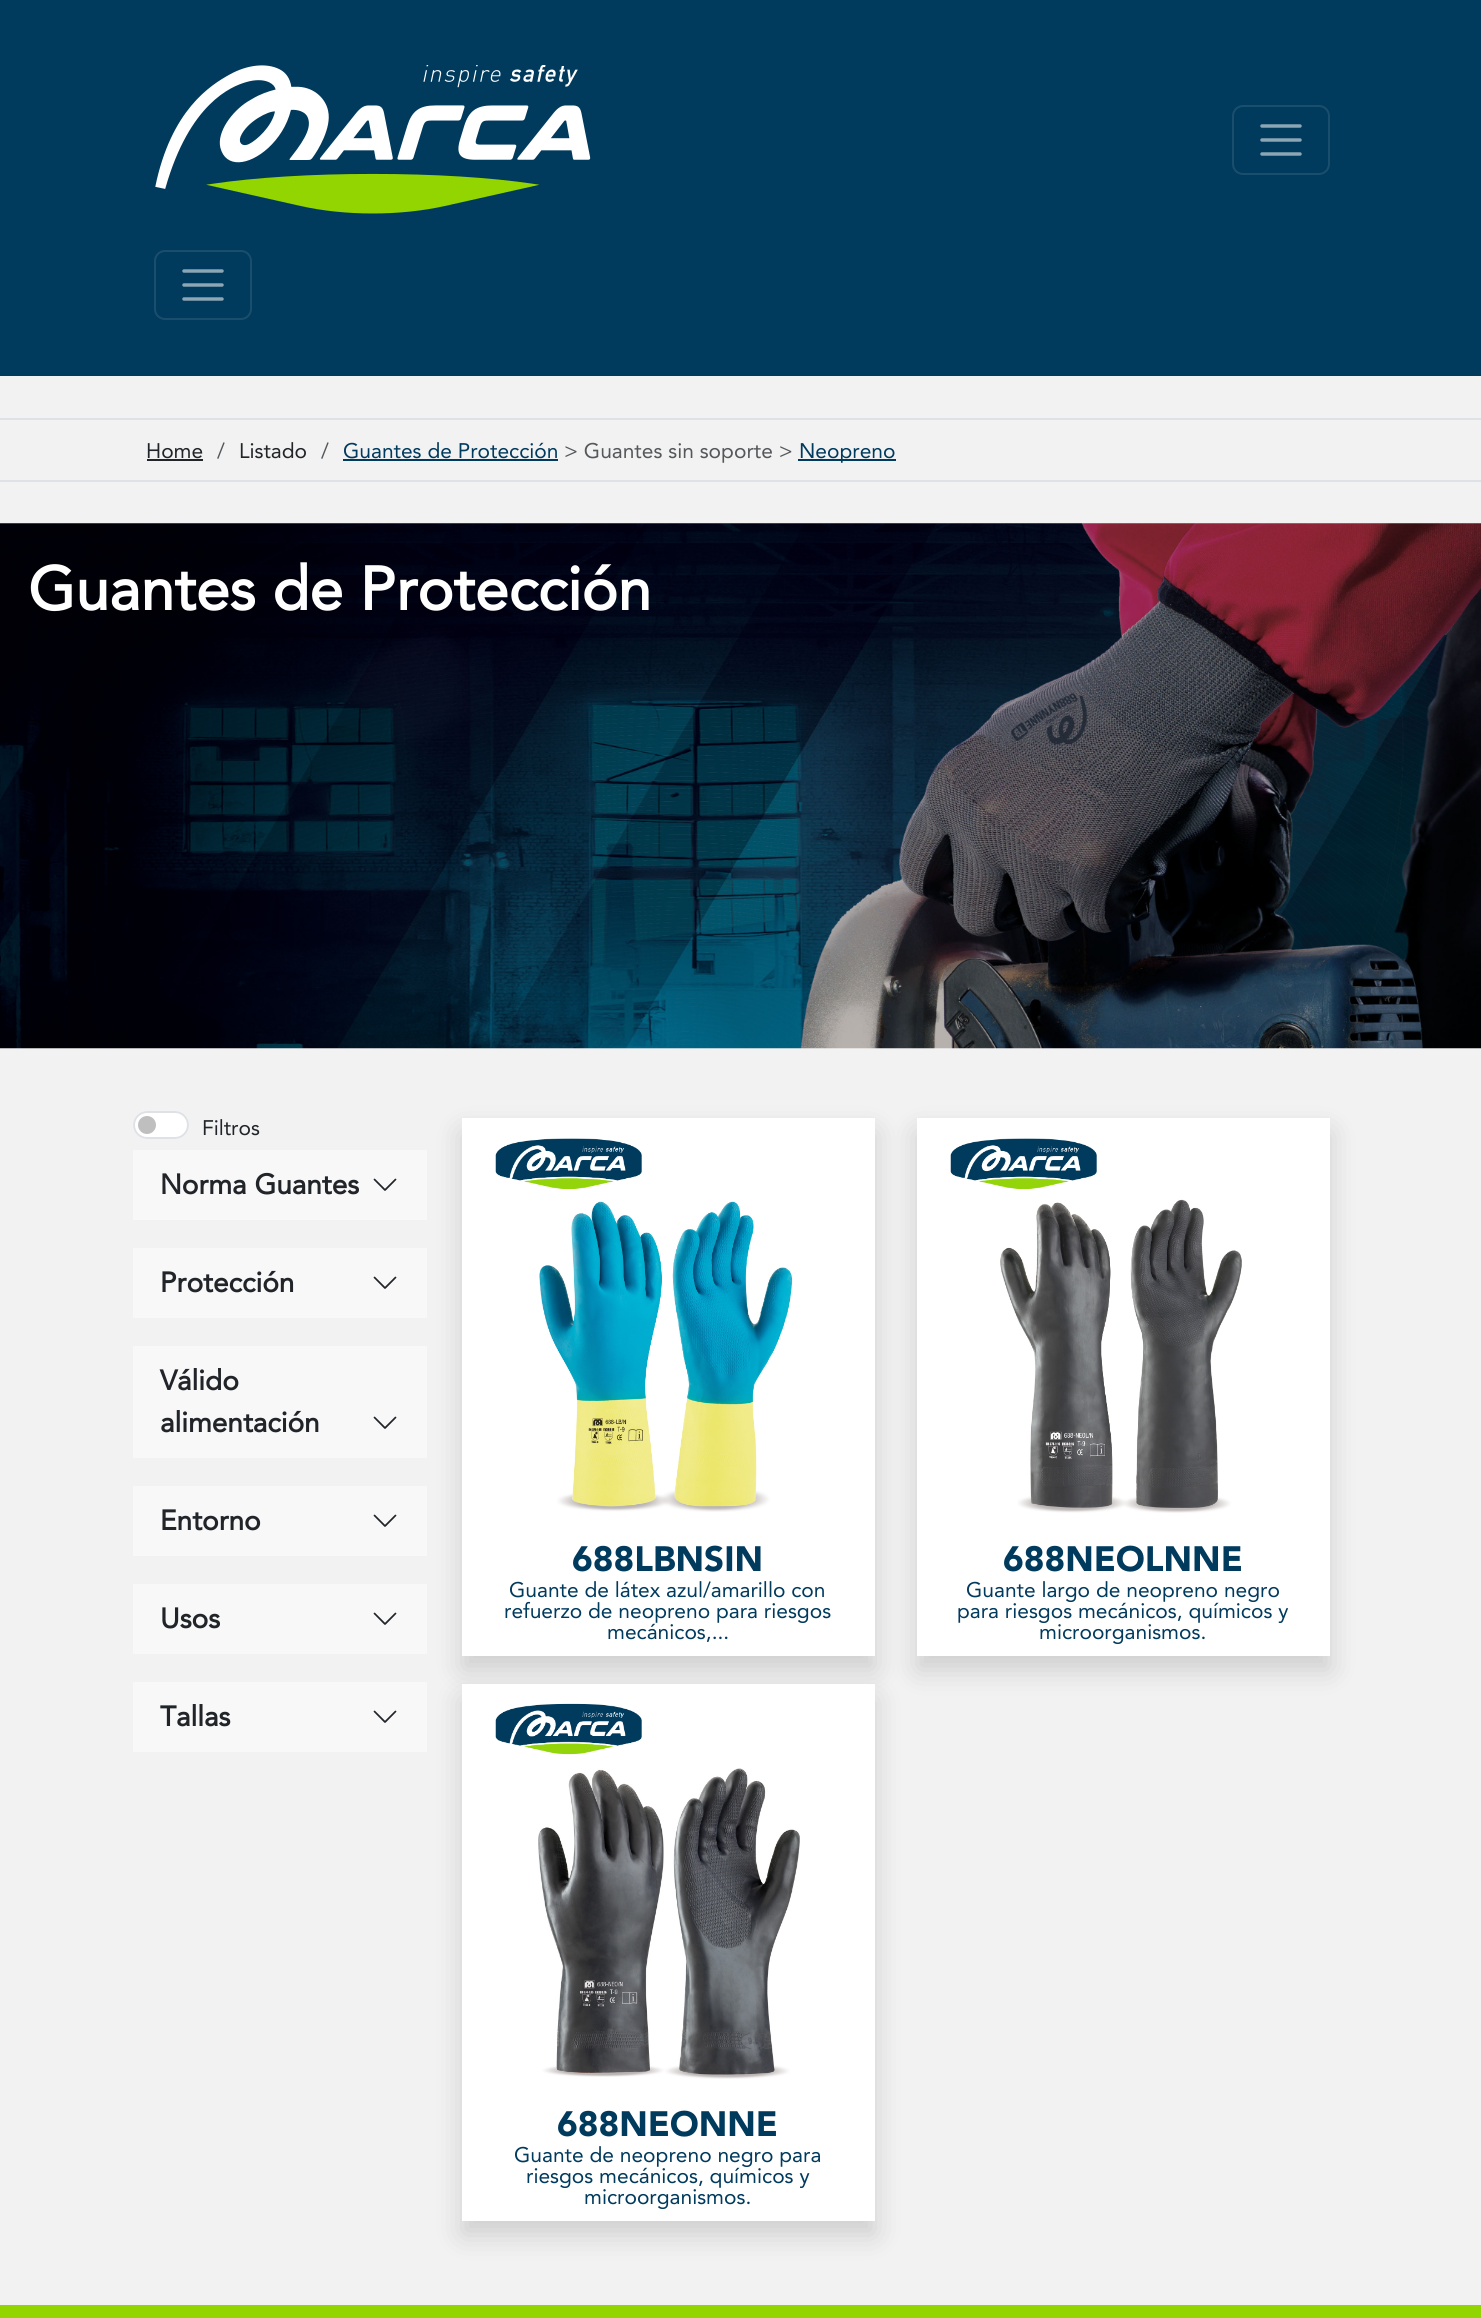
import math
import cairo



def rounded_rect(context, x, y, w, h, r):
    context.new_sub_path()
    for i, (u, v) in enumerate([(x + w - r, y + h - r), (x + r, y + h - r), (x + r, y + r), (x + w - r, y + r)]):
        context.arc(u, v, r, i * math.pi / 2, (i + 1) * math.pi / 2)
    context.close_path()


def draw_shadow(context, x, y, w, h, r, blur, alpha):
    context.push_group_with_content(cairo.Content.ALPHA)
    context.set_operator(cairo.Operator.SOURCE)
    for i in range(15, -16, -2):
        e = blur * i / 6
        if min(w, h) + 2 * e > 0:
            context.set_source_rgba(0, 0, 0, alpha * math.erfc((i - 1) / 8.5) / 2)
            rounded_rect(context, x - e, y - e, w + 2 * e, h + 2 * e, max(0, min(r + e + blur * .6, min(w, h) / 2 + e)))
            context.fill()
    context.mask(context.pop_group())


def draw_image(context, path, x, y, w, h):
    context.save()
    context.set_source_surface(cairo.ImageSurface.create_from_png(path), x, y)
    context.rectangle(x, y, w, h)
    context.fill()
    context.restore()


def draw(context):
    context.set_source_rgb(0, 58 / 255, 93 / 255)
    context.paint()
    draw_image(context, "images/1.png", 155, 65, 436, 149)
    rounded_rect(context, 1233, 106, 96, 68, 10)
    context.set_source_rgb(26 / 255, 78 / 255, 109 / 255)
    context.stroke()
    context.new_path()
    context.move_to(1262, 126)
    context.line_to(1300, 126)
    context.move_to(1262, 140)
    context.line_to(1300, 140)
    context.move_to(1262, 154)
    context.line_to(1300, 154)
    context.set_source_rgb(140 / 255, 166 / 255, 182 / 255)
    context.set_line_width(3.5)
    context.set_line_cap(cairo.LineCap.ROUND)
    context.stroke()
    rounded_rect(context, 155, 251, 96, 68, 10)
    context.set_source_rgb(26 / 255, 78 / 255, 109 / 255)
    context.set_line_width(2)
    context.set_line_cap(cairo.LineCap.BUTT)
    context.stroke()
    context.new_path()
    context.move_to(184, 271)
    context.line_to(222, 271)
    context.move_to(184, 285)
    context.line_to(222, 285)
    context.move_to(184, 299)
    context.line_to(222, 299)
    context.set_source_rgb(140 / 255, 166 / 255, 182 / 255)
    context.set_line_width(3.5)
    context.set_line_cap(cairo.LineCap.ROUND)
    context.stroke()
    context.set_source_rgb(242 / 255, 242 / 255, 242 / 255)
    context.rectangle(0, 376, 1481, 1929)
    context.fill()
    context.set_source_rgb(222 / 255, 226 / 255, 230 / 255)
    context.rectangle(0, 418, 1481, 2)
    context.fill()
    context.rectangle(0, 480, 1481, 2)
    context.fill()
    context.set_source_rgb(33 / 255, 37 / 255, 41 / 255)
    context.rectangle(147, 459, 56, 2)
    context.fill()
    context.set_source_rgb(0, 58 / 255, 93 / 255)
    context.rectangle(343, 459, 215, 2)
    context.fill()
    context.rectangle(798, 459, 98, 2)
    context.fill()
    draw_image(context, "images/2.png", 0, 523, 1481, 526)
    context.set_source_rgb(1, 1, 1)
    rounded_rect(context, 133, 1111, 56, 28, 14)
    context.fill()
    context.set_source_rgb(191 / 255, 191 / 255, 191 / 255)
    context.arc(147, 1125, 9, 0, 2 * math.pi)
    context.fill()
    rounded_rect(context, 134, 1112, 54, 26, 13)
    context.set_source_rgb(222 / 255, 226 / 255, 230 / 255)
    context.set_line_width(2)
    context.set_line_cap(cairo.LineCap.BUTT)
    context.stroke()
    context.set_source_rgb(0, 0, 0)
    draw_shadow(context, 462, 1132, 413, 538, 0, 14, 0.15)
    context.set_source_rgb(248 / 255, 248 / 255, 249 / 255)
    context.rectangle(133, 1150, 294, 70)
    context.fill()
    draw_image(context, "images/3.png", 373, 1178, 24, 13)
    context.rectangle(133, 1248, 294, 70)
    context.fill()
    draw_image(context, "images/3.png", 373, 1276, 24, 13)
    context.rectangle(133, 1346, 294, 112)
    context.fill()
    draw_image(context, "images/3.png", 373, 1416, 24, 13)
    context.rectangle(133, 1486, 294, 70)
    context.fill()
    draw_image(context, "images/3.png", 373, 1514, 24, 13)
    context.rectangle(133, 1584, 294, 70)
    context.fill()
    draw_image(context, "images/3.png", 373, 1612, 24, 13)
    context.set_source_rgb(1, 1, 1)
    context.rectangle(462, 1118, 413, 538)
    context.fill()
    context.set_source_rgb(0, 0, 0)
    draw_shadow(context, 917, 1132, 413, 538, 0, 14, 0.15)
    context.set_source_rgb(1, 1, 1)
    context.rectangle(917, 1118, 413, 538)
    context.fill()
    context.set_source_rgb(0, 0, 0)
    draw_shadow(context, 462, 1698, 413, 537, 0, 14, 0.15)
    context.set_source_rgb(248 / 255, 248 / 255, 249 / 255)
    context.rectangle(133, 1682, 294, 70)
    context.fill()
    draw_image(context, "images/3.png", 373, 1710, 24, 13)
    draw_image(context, "images/4.png", 495, 1138, 147, 52)
    draw_image(context, "images/5.png", 539, 1201, 254, 311)
    draw_image(context, "images/6.png", 950, 1138, 147, 52)
    draw_image(context, "images/7.png", 1000, 1199, 242, 314)
    context.set_source_rgb(1, 1, 1)
    context.rectangle(462, 1684, 413, 537)
    context.fill()
    draw_image(context, "images/8.png", 495, 1703, 147, 52)
    draw_image(context, "images/9.png", 538, 1768, 262, 311)
    context.set_source_rgb(147 / 255, 213 / 255, 0)
    context.rectangle(0, 2305, 1481, 13)
    context.fill()
    context.select_font_face("Avenir")
    context.set_font_size(21)
    context.set_source_rgb(33 / 255, 37 / 255, 41 / 255)
    context.move_to(146, 458)
    context.show_text("Home")
    context.set_source_rgb(85 / 255, 88 / 255, 91 / 255)
    context.move_to(217, 458)
    context.show_text("/")
    context.set_source_rgb(33 / 255, 37 / 255, 41 / 255)
    context.move_to(239, 458)
    context.show_text("Listado")
    context.set_source_rgb(85 / 255, 88 / 255, 91 / 255)
    context.move_to(321, 458)
    context.show_text("/")
    context.set_source_rgb(0, 58 / 255, 93 / 255)
    context.move_to(343, 458)
    context.show_text("Guantes de Protección")
    context.set_source_rgb(85 / 255, 88 / 255, 91 / 255)
    context.move_to(564, 458)
    context.show_text("> Guantes sin soporte >")
    context.set_source_rgb(0, 58 / 255, 93 / 255)
    context.move_to(799, 458)
    context.show_text("Neopreno")
    context.select_font_face("Avenir", cairo.FontSlant.NORMAL, cairo.FontWeight.BOLD)
    context.set_font_size(60.75)
    context.set_source_rgb(1, 1, 1)
    context.move_to(28, 610)
    context.show_text("Guantes de Protección")
    context.select_font_face("Avenir")
    context.set_font_size(21)
    context.set_source_rgb(33 / 255, 37 / 255, 41 / 255)
    context.move_to(202, 1135)
    context.show_text("Filtros")
    context.select_font_face("Avenir", cairo.FontSlant.NORMAL, cairo.FontWeight.BOLD)
    context.set_font_size(28)
    context.move_to(160, 1194)
    context.show_text("Norma Guantes")
    context.move_to(160, 1292)
    context.show_text("Protección")
    context.move_to(160, 1390)
    context.show_text("Válido")
    context.move_to(160, 1432)
    context.show_text("alimentación")
    context.move_to(160, 1530)
    context.show_text("Entorno")
    context.move_to(160, 1628)
    context.show_text("Usos")
    context.move_to(160, 1726)
    context.show_text("Tallas")
    context.select_font_face("Avenir Black")
    context.set_font_size(35)
    context.set_source_rgb(0, 58 / 255, 93 / 255)
    context.move_to(572, 1571)
    context.show_text("688LBNSIN")
    context.select_font_face("Avenir")
    context.set_font_size(21)
    context.move_to(509, 1597)
    context.show_text("Guante de látex azul/amarillo con")
    context.move_to(504, 1618)
    context.show_text("refuerzo de neopreno para riesgos")
    context.move_to(607, 1639)
    context.show_text("mecánicos,...")
    context.select_font_face("Avenir Black")
    context.set_font_size(35)
    context.move_to(1003, 1571)
    context.show_text("688NEOLNNE")
    context.select_font_face("Avenir")
    context.set_font_size(21)
    context.move_to(966, 1597)
    context.show_text("Guante largo de neopreno negro")
    context.move_to(957, 1618)
    context.show_text("para riesgos mecánicos, químicos y")
    context.move_to(1039, 1639)
    context.show_text("microorganismos.")
    context.select_font_face("Avenir Black")
    context.set_font_size(35)
    context.move_to(557, 2136)
    context.show_text("688NEONNE")
    context.select_font_face("Avenir")
    context.set_font_size(21)
    context.move_to(514, 2162)
    context.show_text("Guante de neopreno negro para")
    context.move_to(526, 2183)
    context.show_text("riesgos mecánicos, químicos y")
    context.move_to(584, 2204)
    context.show_text("microorganismos.")


surface = cairo.ImageSurface(cairo.Format.RGB24, 1481, 2318)
context = cairo.Context(surface)
options = cairo.FontOptions()
options.set_hint_metrics(cairo.HintMetrics.OFF)
options.set_hint_style(cairo.HintStyle.NONE)
context.set_font_options(options)
context.set_miter_limit(4)
draw(context)
surface.write_to_png("out.png")
